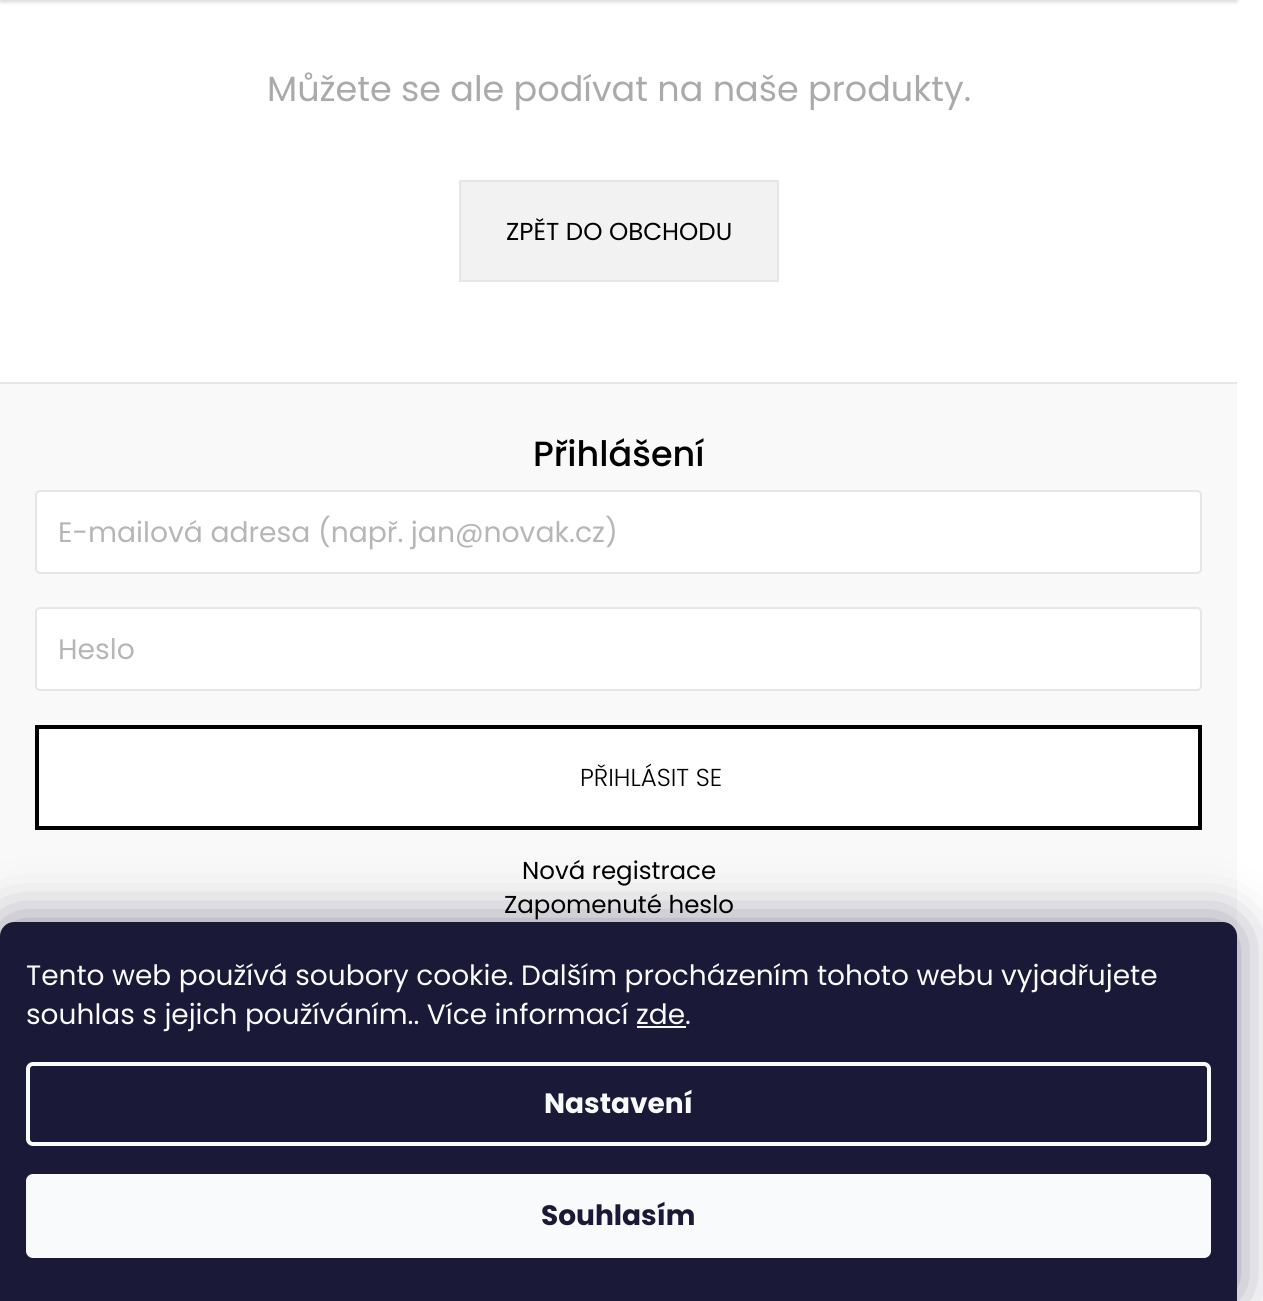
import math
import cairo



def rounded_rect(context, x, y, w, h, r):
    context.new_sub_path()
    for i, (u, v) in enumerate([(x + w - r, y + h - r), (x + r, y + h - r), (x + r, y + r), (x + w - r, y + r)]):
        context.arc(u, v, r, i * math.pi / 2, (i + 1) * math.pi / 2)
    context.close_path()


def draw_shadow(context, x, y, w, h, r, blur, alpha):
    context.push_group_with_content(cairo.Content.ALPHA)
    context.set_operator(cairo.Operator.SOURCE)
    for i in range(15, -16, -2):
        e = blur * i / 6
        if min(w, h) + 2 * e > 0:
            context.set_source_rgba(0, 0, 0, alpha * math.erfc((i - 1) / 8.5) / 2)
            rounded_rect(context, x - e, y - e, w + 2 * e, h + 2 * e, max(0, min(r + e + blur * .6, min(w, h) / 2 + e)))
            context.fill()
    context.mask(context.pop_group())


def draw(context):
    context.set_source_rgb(1, 1, 1)
    context.paint()
    context.set_source_rgb(0, 0, 0)
    draw_shadow(context, 0, -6, 1237, 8, 0, 2, 0.16)
    context.set_source_rgb(242 / 255, 242 / 255, 242 / 255)
    context.rectangle(460, 181, 318, 100)
    context.fill_preserve()
    context.set_source_rgb(230 / 255, 230 / 255, 230 / 255)
    context.stroke()
    context.set_source_rgb(249 / 255, 249 / 255, 249 / 255)
    context.rectangle(0, 384, 1237, 552)
    context.fill()
    context.set_source_rgb(230 / 255, 230 / 255, 230 / 255)
    context.rectangle(0, 382, 1237, 2)
    context.fill()
    context.set_source_rgb(1, 1, 1)
    rounded_rect(context, 36, 491, 1165, 82, 4)
    context.fill_preserve()
    context.set_source_rgb(230 / 255, 230 / 255, 230 / 255)
    context.stroke()
    context.set_source_rgb(1, 1, 1)
    rounded_rect(context, 36, 608, 1165, 82, 4)
    context.fill_preserve()
    context.set_source_rgb(230 / 255, 230 / 255, 230 / 255)
    context.stroke()
    context.set_source_rgb(1, 1, 1)
    context.rectangle(37, 727, 1163, 101)
    context.fill_preserve()
    context.set_source_rgb(0, 0, 0)
    context.set_line_width(4)
    context.stroke()
    context.set_source_rgb(27 / 255, 25 / 255, 57 / 255)
    draw_shadow(context, 0, 922, 1237, 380, 14, 26, 0.5)
    context.set_source_rgb(26 / 255, 25 / 255, 55 / 255)
    context.new_path()
    context.move_to(14, 922)
    context.line_to(1223, 922)
    context.curve_to(1230.5, 922, 1237, 928.5, 1237, 936)
    context.line_to(1237, 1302)
    context.line_to(0, 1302)
    context.line_to(0, 936)
    context.curve_to(0, 928.5, 6.5, 922, 14, 922)
    context.close_path()
    context.fill()
    context.set_source_rgb(248 / 255, 250 / 255, 251 / 255)
    context.rectangle(637, 1026, 49, 2)
    context.fill()
    rounded_rect(context, 28, 1064, 1181, 80, 5)
    context.stroke()
    rounded_rect(context, 26, 1174, 1185, 84, 7)
    context.fill()
    context.select_font_face("Poppins")
    context.set_font_size(35)
    context.set_source_rgb(170 / 255, 170 / 255, 170 / 255)
    context.move_to(267, 101)
    context.show_text("Můžete se ale podívat na naše produkty.")
    context.set_font_size(24.5)
    context.set_source_rgb(0, 0, 0)
    context.move_to(506, 240)
    context.show_text("ZPĚT DO OBCHODU")
    context.select_font_face("Poppins Medium")
    context.set_font_size(35)
    context.move_to(533, 466)
    context.show_text("Přihlášení")
    context.select_font_face("Poppins")
    context.set_font_size(28.2)
    context.set_source_rgb(182 / 255, 182 / 255, 182 / 255)
    context.move_to(58, 542)
    context.show_text("E-mailová adresa (např. jan@novak.cz)")
    context.move_to(58, 659)
    context.show_text("Heslo")
    context.select_font_face("Poppins Light")
    context.set_font_size(24.5)
    context.set_source_rgb(0, 0, 0)
    context.move_to(580, 786)
    context.show_text("PŘIHLÁSIT SE")
    context.select_font_face("Poppins")
    context.move_to(522, 879)
    context.show_text("Nová registrace")
    context.move_to(504, 913)
    context.show_text("Zapomenuté heslo")
    context.set_font_size(28)
    context.set_source_rgb(248 / 255, 250 / 255, 251 / 255)
    context.move_to(26, 985)
    context.show_text("Tento web používá soubory cookie. Dalším procházením tohoto webu vyjadřujete")
    context.move_to(26, 1024)
    context.show_text("souhlas s jejich používáním.. Více informací zde.")
    context.select_font_face("Poppins", cairo.FontSlant.NORMAL, cairo.FontWeight.BOLD)
    context.move_to(544, 1113)
    context.show_text("Nastavení")
    context.set_source_rgb(26 / 255, 25 / 255, 55 / 255)
    context.move_to(541, 1225)
    context.show_text("Souhlasím")


surface = cairo.ImageSurface(cairo.Format.RGB24, 1263, 1301)
context = cairo.Context(surface)
options = cairo.FontOptions()
options.set_hint_metrics(cairo.HintMetrics.OFF)
options.set_hint_style(cairo.HintStyle.NONE)
context.set_font_options(options)
context.set_miter_limit(4)
draw(context)
surface.write_to_png("out.png")
